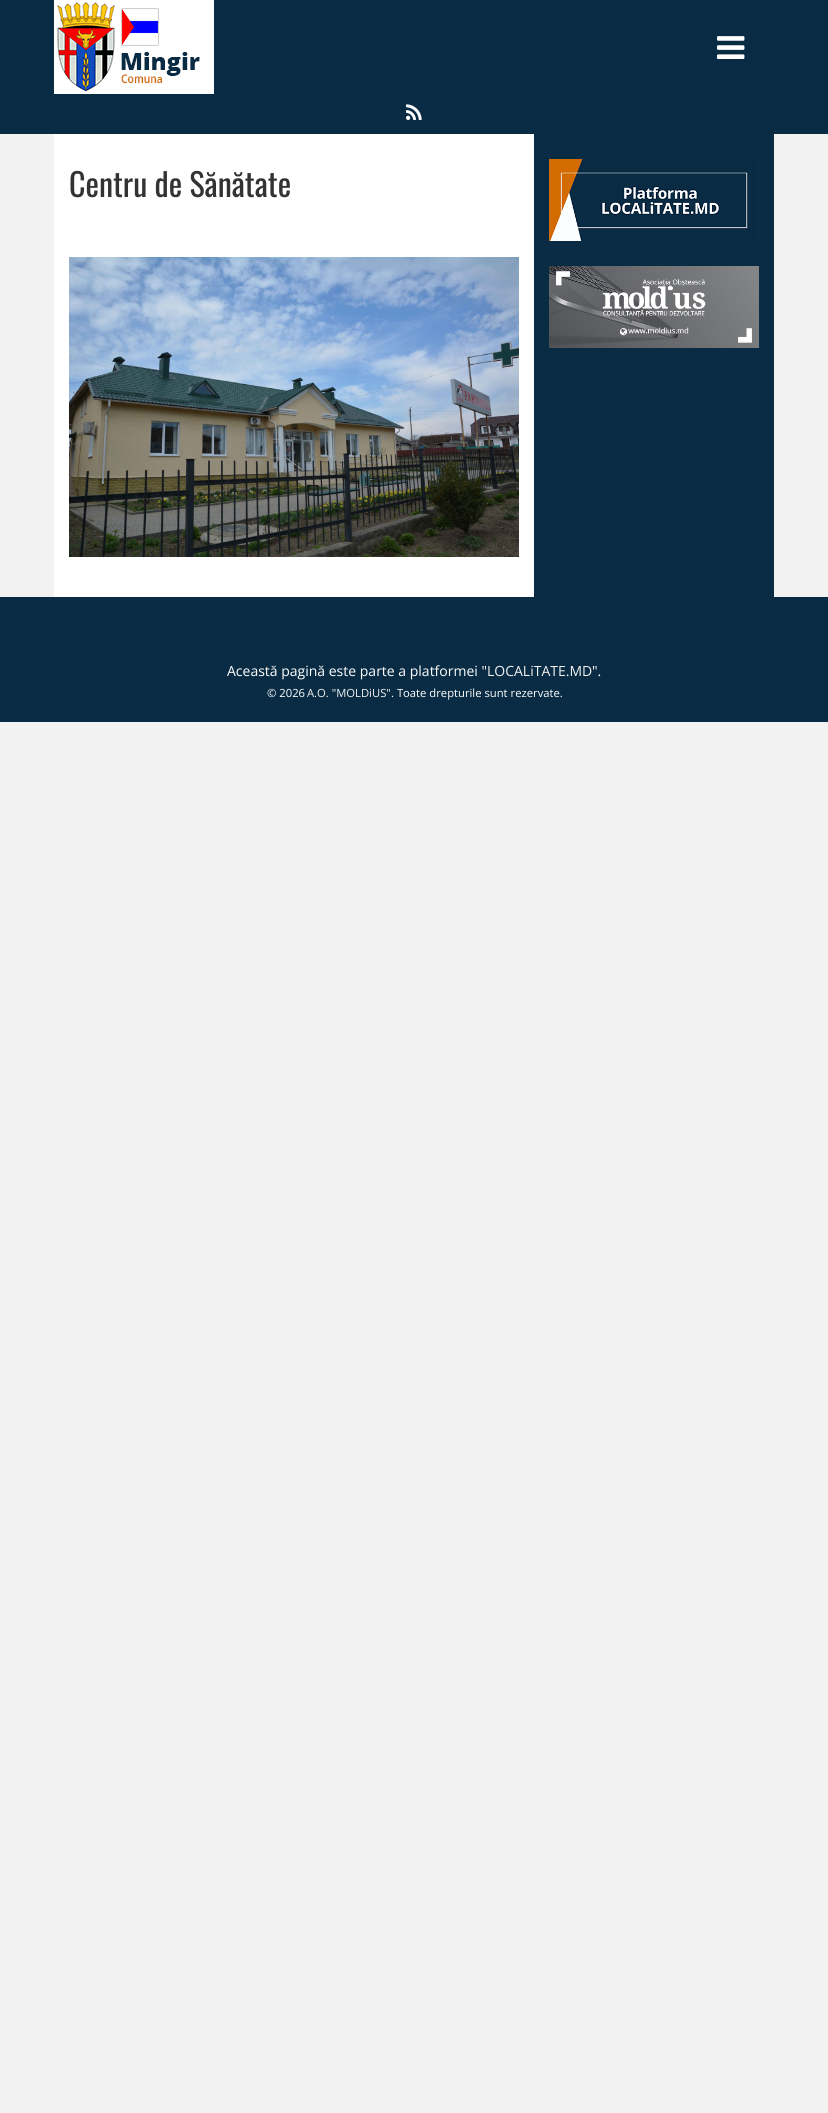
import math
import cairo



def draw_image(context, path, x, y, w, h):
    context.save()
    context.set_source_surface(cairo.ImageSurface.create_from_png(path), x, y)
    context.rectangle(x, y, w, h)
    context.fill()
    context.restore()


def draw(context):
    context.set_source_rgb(242 / 255, 242 / 255, 242 / 255)
    context.paint()
    context.set_source_rgb(9 / 255, 44 / 255, 68 / 255)
    context.rectangle(0, 0, 828, 134)
    context.fill()
    draw_image(context, "images/1.png", 54, 0, 160, 94)
    draw_image(context, "images/2.png", 717, 36, 28, 23)
    draw_image(context, "images/3.png", 406, 104, 16, 16)
    context.set_source_rgb(1, 1, 1)
    context.rectangle(54, 134, 480, 463)
    context.fill()
    draw_image(context, "images/4.png", 69, 257, 450, 300)
    context.set_source_rgb(9 / 255, 44 / 255, 68 / 255)
    context.rectangle(534, 134, 240, 463)
    context.fill()
    draw_image(context, "images/5.png", 549, 159, 210, 82)
    draw_image(context, "images/6.png", 549, 266, 210, 82)
    context.rectangle(0, 597, 828, 125)
    context.fill()
    context.select_font_face("Oswald")
    context.set_font_size(32)
    context.set_source_rgb(51 / 255, 51 / 255, 51 / 255)
    context.move_to(69, 197)
    context.show_text("Centru de Sănătate")
    context.select_font_face("Open Sans")
    context.set_font_size(14)
    context.set_source_rgb(1, 1, 1)
    context.move_to(227, 676)
    context.show_text("Această pagină este parte a platformei \"")
    context.set_source_rgb(242 / 255, 242 / 255, 242 / 255)
    context.move_to(487, 676)
    context.show_text("LOCALiTATE.MD")
    context.set_source_rgb(1, 1, 1)
    context.move_to(592, 676)
    context.show_text("\".")
    context.set_font_size(11.25)
    context.move_to(267, 697)
    context.show_text("© 2026")
    context.set_source_rgb(242 / 255, 242 / 255, 242 / 255)
    context.move_to(307, 697)
    context.show_text("A.O. \"MOLDiUS\"")
    context.set_source_rgb(1, 1, 1)
    context.move_to(391, 697)
    context.show_text(". Toate drepturile sunt rezervate.")


surface = cairo.ImageSurface(cairo.Format.RGB24, 828, 2113)
context = cairo.Context(surface)
options = cairo.FontOptions()
options.set_hint_metrics(cairo.HintMetrics.OFF)
options.set_hint_style(cairo.HintStyle.NONE)
context.set_font_options(options)
context.set_miter_limit(4)
draw(context)
surface.write_to_png("out.png")
